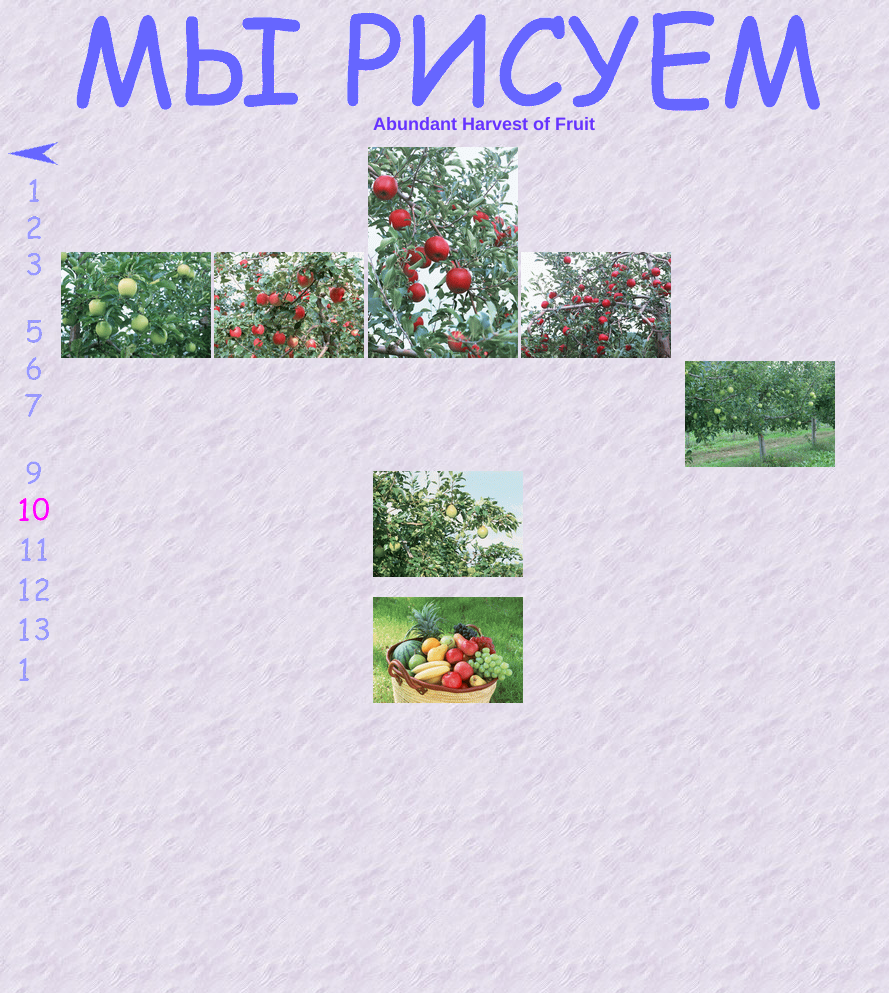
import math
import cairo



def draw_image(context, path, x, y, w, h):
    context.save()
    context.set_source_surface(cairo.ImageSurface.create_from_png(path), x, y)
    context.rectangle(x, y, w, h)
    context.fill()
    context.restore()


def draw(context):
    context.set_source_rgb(1, 1, 1)
    context.paint()
    draw_image(context, "images/1.png", 0, 0, 889, 993)
    draw_image(context, "images/2.png", 76, 11, 744, 100)
    draw_image(context, "images/3.png", 61, 252, 150, 106)
    draw_image(context, "images/4.png", 214, 252, 150, 106)
    draw_image(context, "images/5.png", 368, 147, 150, 211)
    draw_image(context, "images/6.png", 521, 252, 150, 106)
    draw_image(context, "images/7.png", 685, 361, 150, 106)
    draw_image(context, "images/8.png", 373, 471, 150, 106)
    draw_image(context, "images/9.png", 373, 597, 150, 106)
    draw_image(context, "images/10.png", 8, 142, 50, 23)
    draw_image(context, "images/11.png", 29, 179, 10, 23)
    draw_image(context, "images/12.png", 27, 216, 14, 23)
    draw_image(context, "images/13.png", 27, 253, 14, 23)
    draw_image(context, "images/14.png", 27, 320, 15, 23)
    draw_image(context, "images/15.png", 26, 357, 15, 23)
    draw_image(context, "images/16.png", 25, 394, 17, 23)
    draw_image(context, "images/17.png", 26, 461, 15, 23)
    draw_image(context, "images/18.png", 19, 498, 10, 23)
    draw_image(context, "images/19.png", 32, 498, 17, 23)
    draw_image(context, "images/20.png", 21, 538, 10, 23)
    draw_image(context, "images/21.png", 37, 538, 10, 23)
    draw_image(context, "images/22.png", 19, 578, 10, 23)
    draw_image(context, "images/23.png", 35, 578, 14, 23)
    draw_image(context, "images/24.png", 19, 618, 10, 23)
    draw_image(context, "images/25.png", 35, 618, 14, 23)
    draw_image(context, "images/26.png", 19, 658, 10, 23)
    context.select_font_face("Liberation Sans", cairo.FontSlant.NORMAL, cairo.FontWeight.BOLD)
    context.set_font_size(18)
    context.set_source_rgb(102 / 255, 51 / 255, 1)
    context.move_to(373, 130)
    context.show_text("Abundant Harvest of Fruit")


surface = cairo.ImageSurface(cairo.Format.RGB24, 889, 993)
context = cairo.Context(surface)
options = cairo.FontOptions()
options.set_hint_metrics(cairo.HintMetrics.OFF)
options.set_hint_style(cairo.HintStyle.NONE)
context.set_font_options(options)
context.set_miter_limit(4)
draw(context)
surface.write_to_png("out.png")
